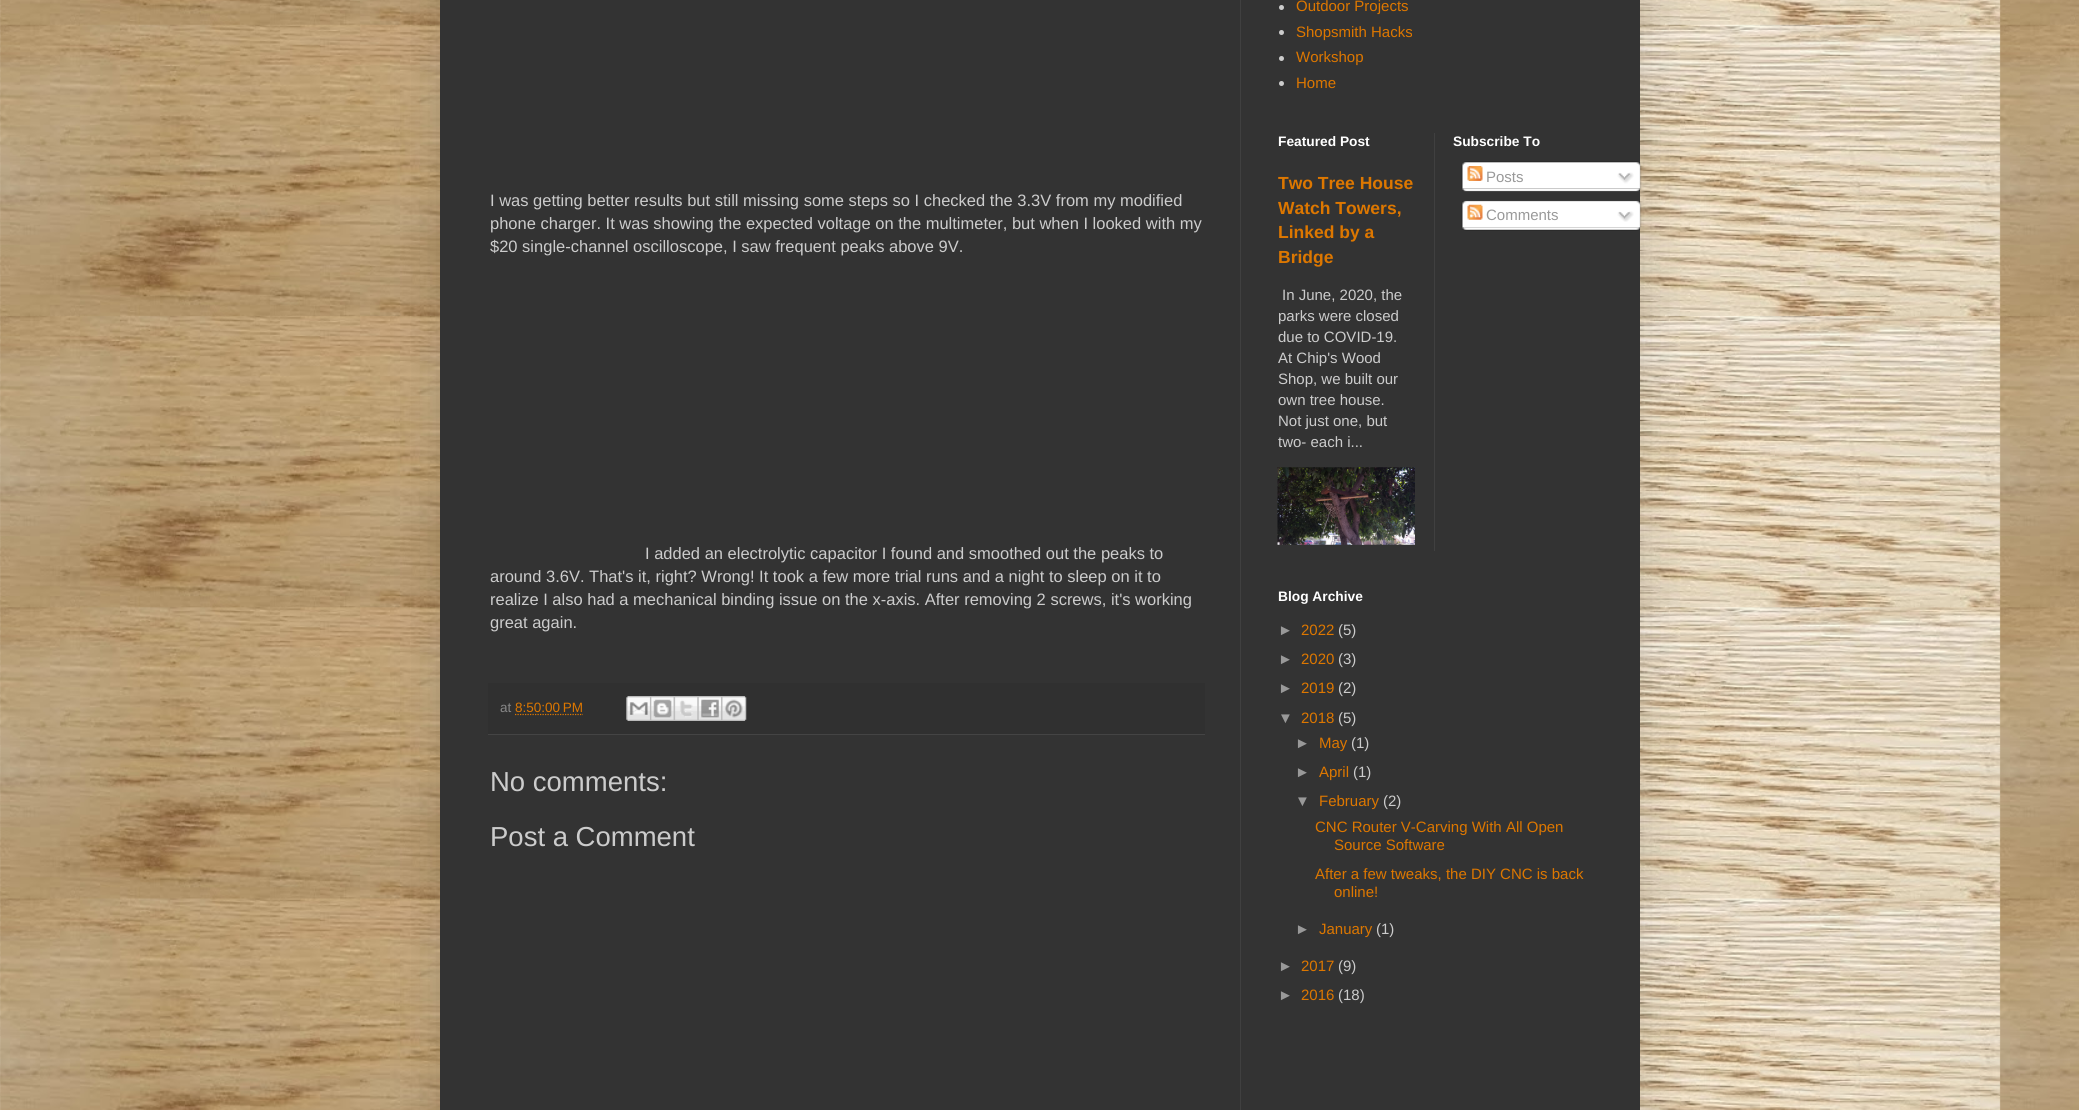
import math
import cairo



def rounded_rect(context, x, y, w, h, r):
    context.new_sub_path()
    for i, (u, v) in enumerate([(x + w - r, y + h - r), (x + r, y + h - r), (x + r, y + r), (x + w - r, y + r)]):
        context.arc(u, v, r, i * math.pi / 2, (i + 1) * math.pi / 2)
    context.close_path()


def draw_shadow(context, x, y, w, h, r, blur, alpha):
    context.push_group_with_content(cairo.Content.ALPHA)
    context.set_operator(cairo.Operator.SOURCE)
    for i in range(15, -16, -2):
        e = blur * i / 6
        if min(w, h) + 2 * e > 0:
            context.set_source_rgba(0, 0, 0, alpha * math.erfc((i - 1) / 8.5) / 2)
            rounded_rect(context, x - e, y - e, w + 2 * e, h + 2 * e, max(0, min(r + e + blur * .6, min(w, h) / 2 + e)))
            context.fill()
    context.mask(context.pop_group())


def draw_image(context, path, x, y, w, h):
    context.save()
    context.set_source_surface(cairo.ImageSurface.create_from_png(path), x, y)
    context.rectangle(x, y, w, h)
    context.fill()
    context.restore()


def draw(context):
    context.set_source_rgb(1, 1, 1)
    context.paint()
    draw_image(context, "images/1.png", 0, 0, 2079, 1110)
    context.set_source_rgb(0, 0, 0)
    draw_shadow(context, 440, -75, 1200, 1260, 0, 25, 0.15)
    context.set_source_rgb(51 / 255, 51 / 255, 51 / 255)
    context.rectangle(440, 0, 1200, 1110)
    context.fill()
    context.set_source_rgb(48 / 255, 48 / 255, 48 / 255)
    context.rectangle(488, 683, 717, 51)
    context.fill()
    context.set_source_rgb(68 / 255, 68 / 255, 68 / 255)
    context.rectangle(488, 734, 717, 1)
    context.fill()
    context.new_path()
    context.move_to(515, 714.5)
    context.line_to(583, 714.5)
    context.set_source_rgb(221 / 255, 119 / 255, 0)
    context.set_line_width(1.2)
    context.set_dash([1.25, 1.25])
    context.stroke()
    draw_image(context, "images/2.png", 626, 696, 24, 25)
    draw_image(context, "images/3.png", 650, 696, 24, 25)
    draw_image(context, "images/4.png", 673, 696, 25, 25)
    draw_image(context, "images/5.png", 697, 696, 25, 25)
    draw_image(context, "images/6.png", 721, 696, 26, 25)
    context.set_source_rgb(204 / 255, 204 / 255, 204 / 255)
    context.arc(1281.5, 7.5, 2.5, 0, 2 * math.pi)
    context.fill()
    context.arc(1281.5, 32.5, 2.5, 0, 2 * math.pi)
    context.fill()
    context.arc(1281.5, 58.5, 2.5, 0, 2 * math.pi)
    context.fill()
    context.arc(1281.5, 83.5, 2.5, 0, 2 * math.pi)
    context.fill()
    draw_image(context, "images/7.png", 1277, 467, 138, 78)
    context.set_source_rgb(64 / 255, 64 / 255, 64 / 255)
    context.rectangle(1434, 133, 1, 418)
    context.fill()
    draw_image(context, "images/8.png", 1461, 161, 181, 28)
    draw_image(context, "images/9.png", 1467, 166, 16, 15)
    draw_image(context, "images/10.png", 1617, 172, 17, 12)
    draw_image(context, "images/11.png", 1462, 188, 179, 4)
    draw_image(context, "images/12.png", 1461, 200, 181, 28)
    draw_image(context, "images/13.png", 1467, 204, 16, 16)
    draw_image(context, "images/14.png", 1617, 211, 17, 11)
    draw_image(context, "images/15.png", 1462, 227, 179, 4)
    context.rectangle(1240, 0, 1, 1110)
    context.fill()
    context.select_font_face("Liberation Sans")
    context.set_font_size(16.5)
    context.set_source_rgb(204 / 255, 204 / 255, 204 / 255)
    context.move_to(490, 206)
    context.show_text("I was getting better results but still missing some steps so I checked the 3.3V from my modified")
    context.move_to(490, 229)
    context.show_text("phone charger. It was showing the expected voltage on the multimeter, but when I looked with my")
    context.move_to(490, 252)
    context.show_text("$20 single-channel oscilloscope, I saw frequent peaks above 9V.")
    context.move_to(645, 559)
    context.show_text("I added an electrolytic capacitor I found and smoothed out the peaks to")
    context.move_to(490, 582)
    context.show_text("around 3.6V. That's it, right? Wrong! It took a few more trial runs and a night to sleep on it to")
    context.move_to(490, 605)
    context.show_text("realize I also had a mechanical binding issue on the x-axis. After removing 2 screws, it's working")
    context.move_to(490, 628)
    context.show_text("great again.")
    context.set_font_size(13.5)
    context.set_source_rgb(136 / 255, 136 / 255, 136 / 255)
    context.move_to(500, 712)
    context.show_text("at")
    context.set_source_rgb(221 / 255, 119 / 255, 0)
    context.move_to(515, 712)
    context.show_text("8:50:00 PM")
    context.set_font_size(27.5)
    context.set_source_rgb(204 / 255, 204 / 255, 204 / 255)
    context.move_to(490, 791)
    context.show_text("No comments:")
    context.move_to(490, 846)
    context.show_text("Post a Comment")
    context.set_font_size(15)
    context.set_source_rgb(221 / 255, 119 / 255, 0)
    context.move_to(1296, 11)
    context.show_text("Outdoor Projects")
    context.move_to(1296, 37)
    context.show_text("Shopsmith Hacks")
    context.move_to(1296, 62)
    context.show_text("Workshop")
    context.move_to(1296, 88)
    context.show_text("Home")
    context.select_font_face("Liberation Sans", cairo.FontSlant.NORMAL, cairo.FontWeight.BOLD)
    context.set_font_size(13.75)
    context.set_source_rgb(1, 1, 1)
    context.move_to(1278, 146)
    context.show_text("Featured Post")
    context.set_font_size(17.5)
    context.set_source_rgb(221 / 255, 119 / 255, 0)
    context.move_to(1278, 189)
    context.show_text("Two Tree House")
    context.move_to(1278, 214)
    context.show_text("Watch Towers,")
    context.move_to(1278, 238)
    context.show_text("Linked by a")
    context.move_to(1278, 263)
    context.show_text("Bridge")
    context.select_font_face("Liberation Sans")
    context.set_font_size(15)
    context.set_source_rgb(204 / 255, 204 / 255, 204 / 255)
    context.move_to(1282, 300)
    context.show_text("In June, 2020, the")
    context.move_to(1278, 321)
    context.show_text("parks were closed")
    context.move_to(1278, 342)
    context.show_text("due to COVID-19.")
    context.move_to(1278, 363)
    context.show_text("At Chip's Wood")
    context.move_to(1278, 384)
    context.show_text("Shop, we built our")
    context.move_to(1278, 405)
    context.show_text("own tree house.")
    context.move_to(1278, 426)
    context.show_text("Not just one, but")
    context.move_to(1278, 447)
    context.show_text("two- each i...")
    context.select_font_face("Liberation Sans", cairo.FontSlant.NORMAL, cairo.FontWeight.BOLD)
    context.set_font_size(13.75)
    context.set_source_rgb(1, 1, 1)
    context.move_to(1453, 146)
    context.show_text("Subscribe To")
    context.select_font_face("Liberation Sans")
    context.set_font_size(15)
    context.set_source_rgb(153 / 255, 153 / 255, 153 / 255)
    context.move_to(1486, 182)
    context.show_text("Posts")
    context.move_to(1486, 220)
    context.show_text("Comments")
    context.select_font_face("Liberation Sans", cairo.FontSlant.NORMAL, cairo.FontWeight.BOLD)
    context.set_font_size(13.75)
    context.set_source_rgb(1, 1, 1)
    context.move_to(1278, 601)
    context.show_text("Blog Archive")
    context.select_font_face("Liberation Sans")
    context.set_font_size(15)
    context.set_source_rgb(153 / 255, 153 / 255, 153 / 255)
    context.move_to(1278, 635)
    context.show_text("►")
    context.set_source_rgb(221 / 255, 119 / 255, 0)
    context.move_to(1301, 635)
    context.show_text("2022")
    context.set_source_rgb(204 / 255, 204 / 255, 204 / 255)
    context.move_to(1338, 635)
    context.show_text("(5)")
    context.set_source_rgb(153 / 255, 153 / 255, 153 / 255)
    context.move_to(1278, 664)
    context.show_text("►")
    context.set_source_rgb(221 / 255, 119 / 255, 0)
    context.move_to(1301, 664)
    context.show_text("2020")
    context.set_source_rgb(204 / 255, 204 / 255, 204 / 255)
    context.move_to(1338, 664)
    context.show_text("(3)")
    context.set_source_rgb(153 / 255, 153 / 255, 153 / 255)
    context.move_to(1278, 693)
    context.show_text("►")
    context.set_source_rgb(221 / 255, 119 / 255, 0)
    context.move_to(1301, 693)
    context.show_text("2019")
    context.set_source_rgb(204 / 255, 204 / 255, 204 / 255)
    context.move_to(1338, 693)
    context.show_text("(2)")
    context.set_source_rgb(153 / 255, 153 / 255, 153 / 255)
    context.move_to(1278, 723)
    context.show_text("▼")
    context.set_source_rgb(221 / 255, 119 / 255, 0)
    context.move_to(1301, 723)
    context.show_text("2018")
    context.set_source_rgb(204 / 255, 204 / 255, 204 / 255)
    context.move_to(1338, 723)
    context.show_text("(5)")
    context.set_source_rgb(153 / 255, 153 / 255, 153 / 255)
    context.move_to(1295, 748)
    context.show_text("►")
    context.set_source_rgb(221 / 255, 119 / 255, 0)
    context.move_to(1319, 748)
    context.show_text("May")
    context.set_source_rgb(204 / 255, 204 / 255, 204 / 255)
    context.move_to(1351, 748)
    context.show_text("(1)")
    context.set_source_rgb(153 / 255, 153 / 255, 153 / 255)
    context.move_to(1295, 777)
    context.show_text("►")
    context.set_source_rgb(221 / 255, 119 / 255, 0)
    context.move_to(1319, 777)
    context.show_text("April")
    context.set_source_rgb(204 / 255, 204 / 255, 204 / 255)
    context.move_to(1353, 777)
    context.show_text("(1)")
    context.set_source_rgb(153 / 255, 153 / 255, 153 / 255)
    context.move_to(1295, 806)
    context.show_text("▼")
    context.set_source_rgb(221 / 255, 119 / 255, 0)
    context.move_to(1319, 806)
    context.show_text("February")
    context.set_source_rgb(204 / 255, 204 / 255, 204 / 255)
    context.move_to(1383, 806)
    context.show_text("(2)")
    context.set_source_rgb(221 / 255, 119 / 255, 0)
    context.move_to(1315, 832)
    context.show_text("CNC Router V-Carving With All Open")
    context.move_to(1334, 850)
    context.show_text("Source Software")
    context.move_to(1315, 879)
    context.show_text("After a few tweaks, the DIY CNC is back")
    context.move_to(1334, 897)
    context.show_text("online!")
    context.set_source_rgb(153 / 255, 153 / 255, 153 / 255)
    context.move_to(1295, 934)
    context.show_text("►")
    context.set_source_rgb(221 / 255, 119 / 255, 0)
    context.move_to(1319, 934)
    context.show_text("January")
    context.set_source_rgb(204 / 255, 204 / 255, 204 / 255)
    context.move_to(1376, 934)
    context.show_text("(1)")
    context.set_source_rgb(153 / 255, 153 / 255, 153 / 255)
    context.move_to(1278, 971)
    context.show_text("►")
    context.set_source_rgb(221 / 255, 119 / 255, 0)
    context.move_to(1301, 971)
    context.show_text("2017")
    context.set_source_rgb(204 / 255, 204 / 255, 204 / 255)
    context.move_to(1338, 971)
    context.show_text("(9)")
    context.set_source_rgb(153 / 255, 153 / 255, 153 / 255)
    context.move_to(1278, 1000)
    context.show_text("►")
    context.set_source_rgb(221 / 255, 119 / 255, 0)
    context.move_to(1301, 1000)
    context.show_text("2016")
    context.set_source_rgb(204 / 255, 204 / 255, 204 / 255)
    context.move_to(1338, 1000)
    context.show_text("(18)")


surface = cairo.ImageSurface(cairo.Format.RGB24, 2079, 1110)
context = cairo.Context(surface)
options = cairo.FontOptions()
options.set_hint_metrics(cairo.HintMetrics.OFF)
options.set_hint_style(cairo.HintStyle.NONE)
context.set_font_options(options)
context.set_miter_limit(4)
draw(context)
surface.write_to_png("out.png")
